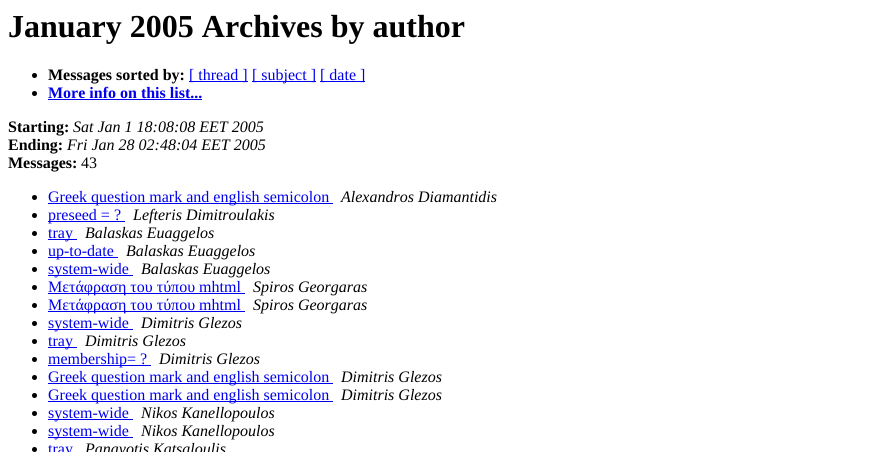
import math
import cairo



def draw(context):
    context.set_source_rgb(1, 1, 1)
    context.paint()
    context.set_source_rgb(0, 0, 0)
    context.arc(34.5, 75.5, 2.5, 0, 2 * math.pi)
    context.fill()
    context.set_source_rgb(0, 0, 238 / 255)
    context.rectangle(189, 81, 59, 1)
    context.fill()
    context.rectangle(252, 81, 64, 1)
    context.fill()
    context.rectangle(320, 81, 45, 1)
    context.fill()
    context.set_source_rgb(0, 0, 0)
    context.arc(34.5, 93.5, 2.5, 0, 2 * math.pi)
    context.fill()
    context.set_source_rgb(0, 0, 238 / 255)
    context.rectangle(48, 99, 154, 1)
    context.fill()
    context.set_source_rgb(0, 0, 0)
    context.arc(34.5, 197.5, 2.5, 0, 2 * math.pi)
    context.fill()
    context.set_source_rgb(0, 0, 238 / 255)
    context.rectangle(48, 203, 285, 1)
    context.fill()
    context.set_source_rgb(0, 0, 0)
    context.arc(34.5, 215.5, 2.5, 0, 2 * math.pi)
    context.fill()
    context.set_source_rgb(0, 0, 238 / 255)
    context.rectangle(48, 221, 77, 1)
    context.fill()
    context.set_source_rgb(0, 0, 0)
    context.arc(34.5, 233.5, 2.5, 0, 2 * math.pi)
    context.fill()
    context.set_source_rgb(0, 0, 238 / 255)
    context.rectangle(48, 239, 29, 1)
    context.fill()
    context.set_source_rgb(0, 0, 0)
    context.arc(34.5, 251.5, 2.5, 0, 2 * math.pi)
    context.fill()
    context.set_source_rgb(0, 0, 238 / 255)
    context.rectangle(48, 257, 70, 1)
    context.fill()
    context.set_source_rgb(0, 0, 0)
    context.arc(34.5, 269.5, 2.5, 0, 2 * math.pi)
    context.fill()
    context.set_source_rgb(0, 0, 238 / 255)
    context.rectangle(48, 275, 85, 1)
    context.fill()
    context.set_source_rgb(0, 0, 0)
    context.arc(34.5, 287.5, 2.5, 0, 2 * math.pi)
    context.fill()
    context.set_source_rgb(0, 0, 238 / 255)
    context.rectangle(48, 293, 197, 1)
    context.fill()
    context.set_source_rgb(0, 0, 0)
    context.arc(34.5, 305.5, 2.5, 0, 2 * math.pi)
    context.fill()
    context.set_source_rgb(0, 0, 238 / 255)
    context.rectangle(48, 311, 197, 1)
    context.fill()
    context.set_source_rgb(0, 0, 0)
    context.arc(34.5, 323.5, 2.5, 0, 2 * math.pi)
    context.fill()
    context.set_source_rgb(0, 0, 238 / 255)
    context.rectangle(48, 329, 85, 1)
    context.fill()
    context.set_source_rgb(0, 0, 0)
    context.arc(34.5, 341.5, 2.5, 0, 2 * math.pi)
    context.fill()
    context.set_source_rgb(0, 0, 238 / 255)
    context.rectangle(48, 347, 29, 1)
    context.fill()
    context.set_source_rgb(0, 0, 0)
    context.arc(34.5, 359.5, 2.5, 0, 2 * math.pi)
    context.fill()
    context.set_source_rgb(0, 0, 238 / 255)
    context.rectangle(48, 365, 103, 1)
    context.fill()
    context.set_source_rgb(0, 0, 0)
    context.arc(34.5, 377.5, 2.5, 0, 2 * math.pi)
    context.fill()
    context.set_source_rgb(0, 0, 238 / 255)
    context.rectangle(48, 383, 285, 1)
    context.fill()
    context.set_source_rgb(0, 0, 0)
    context.arc(34.5, 395.5, 2.5, 0, 2 * math.pi)
    context.fill()
    context.set_source_rgb(0, 0, 238 / 255)
    context.rectangle(48, 401, 285, 1)
    context.fill()
    context.set_source_rgb(0, 0, 0)
    context.arc(34.5, 413.5, 2.5, 0, 2 * math.pi)
    context.fill()
    context.set_source_rgb(0, 0, 238 / 255)
    context.rectangle(48, 419, 85, 1)
    context.fill()
    context.set_source_rgb(0, 0, 0)
    context.arc(34.5, 431.5, 2.5, 0, 2 * math.pi)
    context.fill()
    context.set_source_rgb(0, 0, 238 / 255)
    context.rectangle(48, 437, 85, 1)
    context.fill()
    context.set_source_rgb(0, 0, 0)
    context.arc(34.5, 449.5, 2.5, 0, 2 * math.pi)
    context.fill()
    context.select_font_face("Liberation Serif", cairo.FontSlant.NORMAL, cairo.FontWeight.BOLD)
    context.set_font_size(32)
    context.move_to(8, 37)
    context.show_text("January 2005 Archives by author")
    context.set_font_size(16)
    context.move_to(48, 80)
    context.show_text("Messages sorted by:")
    context.select_font_face("Liberation Serif")
    context.set_source_rgb(0, 0, 238 / 255)
    context.move_to(189, 80)
    context.show_text("[ thread ]")
    context.move_to(252, 80)
    context.show_text("[ subject ]")
    context.move_to(320, 80)
    context.show_text("[ date ]")
    context.select_font_face("Liberation Serif", cairo.FontSlant.NORMAL, cairo.FontWeight.BOLD)
    context.move_to(48, 98)
    context.show_text("More info on this list...")
    context.set_source_rgb(0, 0, 0)
    context.move_to(8, 132)
    context.show_text("Starting:")
    context.select_font_face("Liberation Serif", cairo.FontSlant.ITALIC)
    context.move_to(73, 132)
    context.show_text("Sat Jan 1 18:08:08 EET 2005")
    context.select_font_face("Liberation Serif", cairo.FontSlant.NORMAL, cairo.FontWeight.BOLD)
    context.move_to(8, 150)
    context.show_text("Ending:")
    context.select_font_face("Liberation Serif", cairo.FontSlant.ITALIC)
    context.move_to(67, 150)
    context.show_text("Fri Jan 28 02:48:04 EET 2005")
    context.select_font_face("Liberation Serif", cairo.FontSlant.NORMAL, cairo.FontWeight.BOLD)
    context.move_to(8, 168)
    context.show_text("Messages:")
    context.select_font_face("Liberation Serif")
    context.move_to(81, 168)
    context.show_text("43")
    context.set_source_rgb(0, 0, 238 / 255)
    context.move_to(48, 202)
    context.show_text("Greek question mark and english semicolon")
    context.select_font_face("Liberation Serif", cairo.FontSlant.ITALIC)
    context.set_source_rgb(0, 0, 0)
    context.move_to(341, 202)
    context.show_text("Alexandros Diamantidis")
    context.select_font_face("Liberation Serif")
    context.set_source_rgb(0, 0, 238 / 255)
    context.move_to(48, 220)
    context.show_text("preseed = ?")
    context.select_font_face("Liberation Serif", cairo.FontSlant.ITALIC)
    context.set_source_rgb(0, 0, 0)
    context.move_to(133, 220)
    context.show_text("Lefteris Dimitroulakis")
    context.select_font_face("Liberation Serif")
    context.set_source_rgb(0, 0, 238 / 255)
    context.move_to(48, 238)
    context.show_text("tray")
    context.select_font_face("Liberation Serif", cairo.FontSlant.ITALIC)
    context.set_source_rgb(0, 0, 0)
    context.move_to(85, 238)
    context.show_text("Balaskas Euaggelos")
    context.select_font_face("Liberation Serif")
    context.set_source_rgb(0, 0, 238 / 255)
    context.move_to(48, 256)
    context.show_text("up-to-date")
    context.select_font_face("Liberation Serif", cairo.FontSlant.ITALIC)
    context.set_source_rgb(0, 0, 0)
    context.move_to(126, 256)
    context.show_text("Balaskas Euaggelos")
    context.select_font_face("Liberation Serif")
    context.set_source_rgb(0, 0, 238 / 255)
    context.move_to(48, 274)
    context.show_text("system-wide")
    context.select_font_face("Liberation Serif", cairo.FontSlant.ITALIC)
    context.set_source_rgb(0, 0, 0)
    context.move_to(141, 274)
    context.show_text("Balaskas Euaggelos")
    context.select_font_face("Liberation Serif")
    context.set_source_rgb(0, 0, 238 / 255)
    context.move_to(48, 292)
    context.show_text("Μετάφραση του τύπου mhtml")
    context.select_font_face("Liberation Serif", cairo.FontSlant.ITALIC)
    context.set_source_rgb(0, 0, 0)
    context.move_to(253, 292)
    context.show_text("Spiros Georgaras")
    context.select_font_face("Liberation Serif")
    context.set_source_rgb(0, 0, 238 / 255)
    context.move_to(48, 310)
    context.show_text("Μετάφραση του τύπου mhtml")
    context.select_font_face("Liberation Serif", cairo.FontSlant.ITALIC)
    context.set_source_rgb(0, 0, 0)
    context.move_to(253, 310)
    context.show_text("Spiros Georgaras")
    context.select_font_face("Liberation Serif")
    context.set_source_rgb(0, 0, 238 / 255)
    context.move_to(48, 328)
    context.show_text("system-wide")
    context.select_font_face("Liberation Serif", cairo.FontSlant.ITALIC)
    context.set_source_rgb(0, 0, 0)
    context.move_to(141, 328)
    context.show_text("Dimitris Glezos")
    context.select_font_face("Liberation Serif")
    context.set_source_rgb(0, 0, 238 / 255)
    context.move_to(48, 346)
    context.show_text("tray")
    context.select_font_face("Liberation Serif", cairo.FontSlant.ITALIC)
    context.set_source_rgb(0, 0, 0)
    context.move_to(85, 346)
    context.show_text("Dimitris Glezos")
    context.select_font_face("Liberation Serif")
    context.set_source_rgb(0, 0, 238 / 255)
    context.move_to(48, 364)
    context.show_text("membership= ?")
    context.select_font_face("Liberation Serif", cairo.FontSlant.ITALIC)
    context.set_source_rgb(0, 0, 0)
    context.move_to(159, 364)
    context.show_text("Dimitris Glezos")
    context.select_font_face("Liberation Serif")
    context.set_source_rgb(0, 0, 238 / 255)
    context.move_to(48, 382)
    context.show_text("Greek question mark and english semicolon")
    context.select_font_face("Liberation Serif", cairo.FontSlant.ITALIC)
    context.set_source_rgb(0, 0, 0)
    context.move_to(341, 382)
    context.show_text("Dimitris Glezos")
    context.select_font_face("Liberation Serif")
    context.set_source_rgb(0, 0, 238 / 255)
    context.move_to(48, 400)
    context.show_text("Greek question mark and english semicolon")
    context.select_font_face("Liberation Serif", cairo.FontSlant.ITALIC)
    context.set_source_rgb(0, 0, 0)
    context.move_to(341, 400)
    context.show_text("Dimitris Glezos")
    context.select_font_face("Liberation Serif")
    context.set_source_rgb(0, 0, 238 / 255)
    context.move_to(48, 418)
    context.show_text("system-wide")
    context.select_font_face("Liberation Serif", cairo.FontSlant.ITALIC)
    context.set_source_rgb(0, 0, 0)
    context.move_to(141, 418)
    context.show_text("Nikos Kanellopoulos")
    context.select_font_face("Liberation Serif")
    context.set_source_rgb(0, 0, 238 / 255)
    context.move_to(48, 436)
    context.show_text("system-wide")
    context.select_font_face("Liberation Serif", cairo.FontSlant.ITALIC)
    context.set_source_rgb(0, 0, 0)
    context.move_to(141, 436)
    context.show_text("Nikos Kanellopoulos")
    context.select_font_face("Liberation Serif")
    context.set_source_rgb(0, 0, 238 / 255)
    context.move_to(48, 454)
    context.show_text("tray")
    context.select_font_face("Liberation Serif", cairo.FontSlant.ITALIC)
    context.set_source_rgb(0, 0, 0)
    context.move_to(85, 454)
    context.show_text("Panayotis Katsaloulis")


surface = cairo.ImageSurface(cairo.Format.RGB24, 878, 452)
context = cairo.Context(surface)
options = cairo.FontOptions()
options.set_hint_metrics(cairo.HintMetrics.OFF)
options.set_hint_style(cairo.HintStyle.NONE)
context.set_font_options(options)
context.set_miter_limit(4)
draw(context)
surface.write_to_png("out.png")
